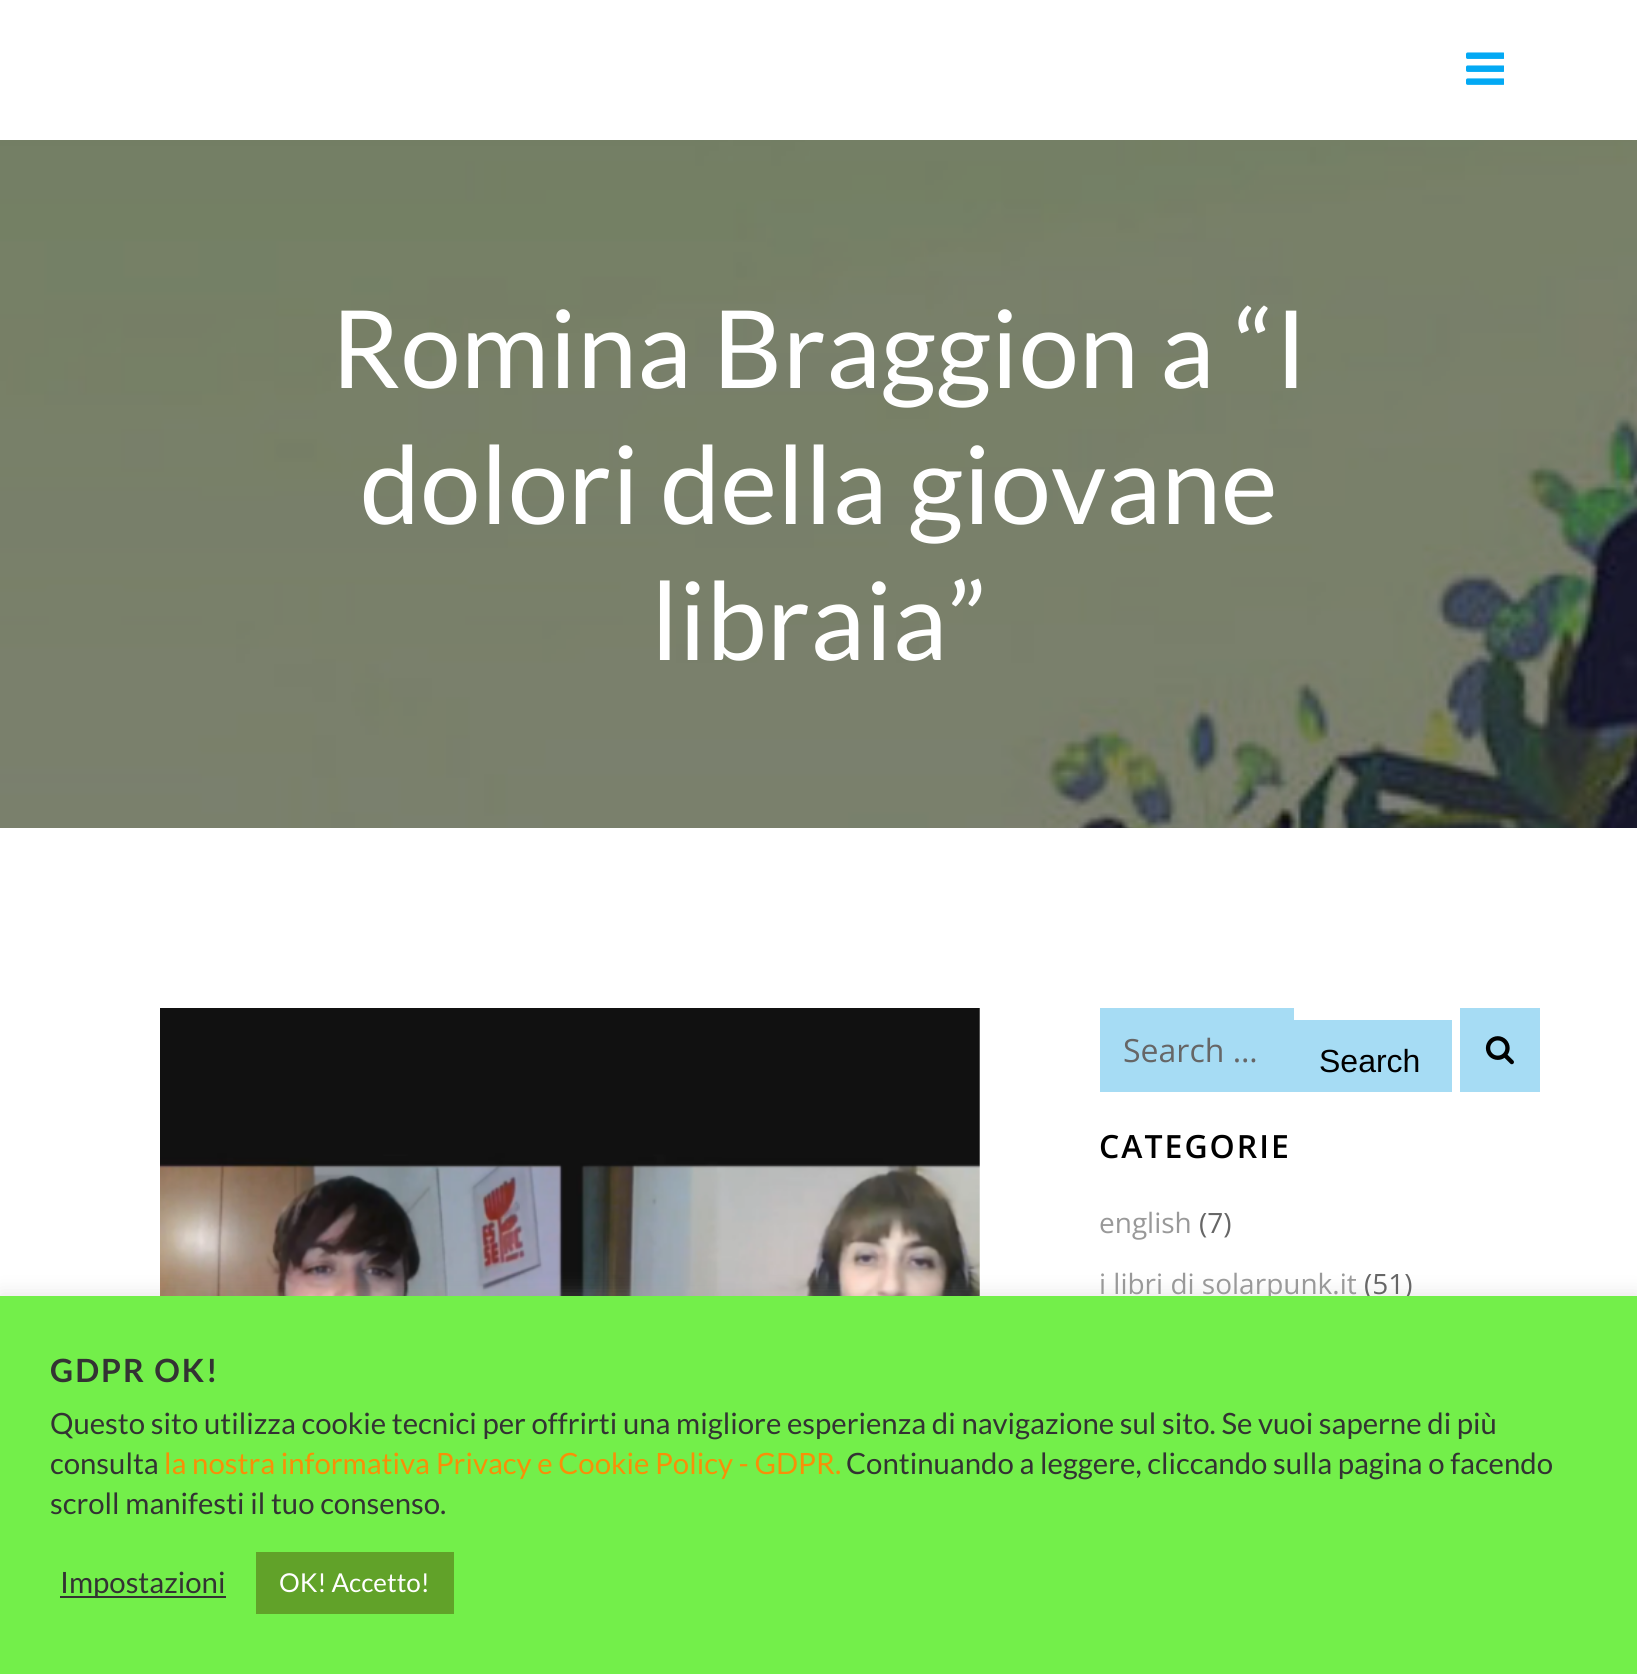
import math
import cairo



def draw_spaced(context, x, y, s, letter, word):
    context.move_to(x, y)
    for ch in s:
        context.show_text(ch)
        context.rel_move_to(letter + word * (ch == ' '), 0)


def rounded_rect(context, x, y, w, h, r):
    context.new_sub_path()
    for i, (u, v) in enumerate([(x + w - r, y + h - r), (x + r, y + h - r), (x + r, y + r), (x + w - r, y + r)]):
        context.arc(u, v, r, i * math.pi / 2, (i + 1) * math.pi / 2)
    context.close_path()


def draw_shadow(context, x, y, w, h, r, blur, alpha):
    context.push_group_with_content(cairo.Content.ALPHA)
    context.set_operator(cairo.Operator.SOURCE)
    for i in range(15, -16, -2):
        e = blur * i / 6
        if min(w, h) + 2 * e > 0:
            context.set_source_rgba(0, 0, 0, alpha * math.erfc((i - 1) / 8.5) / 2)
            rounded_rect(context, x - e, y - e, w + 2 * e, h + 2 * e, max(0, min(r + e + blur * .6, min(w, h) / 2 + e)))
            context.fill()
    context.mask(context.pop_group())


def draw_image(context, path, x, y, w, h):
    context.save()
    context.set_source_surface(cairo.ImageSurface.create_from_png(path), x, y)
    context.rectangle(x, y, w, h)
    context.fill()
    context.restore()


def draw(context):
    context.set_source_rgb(1, 1, 1)
    context.paint()
    draw_image(context, "images/1.png", 1466, 52, 38, 33)
    draw_image(context, "images/2.png", 0, 140, 1637, 688)
    draw_image(context, "images/3.png", 160, 1008, 820, 288)
    context.set_source_rgb(166 / 255, 220 / 255, 244 / 255)
    context.rectangle(1100, 1008, 194, 84)
    context.fill()
    context.rectangle(1294, 1020, 158, 72)
    context.fill()
    context.rectangle(1460, 1008, 80, 84)
    context.fill()
    draw_image(context, "images/4.png", 1485, 1036, 29, 29)
    context.set_source_rgb(172 / 255, 171 / 255, 171 / 255)
    draw_shadow(context, 0, 1294, 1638, 378, 0, 10, 0.3)
    context.select_font_face("Lato")
    context.set_font_size(108)
    context.set_source_rgb(1, 1, 1)
    context.move_to(331, 388)
    context.show_text("Romina Braggion a “I")
    context.move_to(360, 524)
    context.show_text("dolori della giovane")
    context.move_to(651, 660)
    context.show_text("libraia”")
    context.select_font_face("Open Sans")
    context.set_font_size(32)
    context.set_source_rgb(102 / 255, 102 / 255, 102 / 255)
    context.move_to(1123, 1062)
    context.show_text("Search …")
    context.select_font_face("Liberation Sans")
    context.set_source_rgb(0, 0, 0)
    context.move_to(1319, 1072)
    context.show_text("Search")
    context.select_font_face("Open Sans SemiBold")
    draw_spaced(context, 1099, 1158, "CATEGORIE", 2, 0)
    context.select_font_face("Open Sans")
    context.set_font_size(28)
    context.set_source_rgb(153 / 255, 153 / 255, 153 / 255)
    context.move_to(1099, 1233)
    context.show_text("english")
    context.set_source_rgb(102 / 255, 102 / 255, 102 / 255)
    context.move_to(1199, 1233)
    context.show_text("(7)")
    context.set_source_rgb(153 / 255, 153 / 255, 153 / 255)
    context.move_to(1099, 1294)
    context.show_text("i libri di solarpunk.it")
    context.set_source_rgb(102 / 255, 102 / 255, 102 / 255)
    context.move_to(1364, 1294)
    context.show_text("(51)")
    context.set_source_rgb(115 / 255, 239 / 255, 74 / 255)
    context.rectangle(0, 1296, 1637, 378)
    context.fill()
    context.select_font_face("Lato", cairo.FontSlant.NORMAL, cairo.FontWeight.BOLD)
    context.set_font_size(32)
    context.set_source_rgb(51 / 255, 51 / 255, 51 / 255)
    draw_spaced(context, 50, 1382, "GDPR OK!", 2, 0)
    context.select_font_face("Lato")
    context.set_font_size(29.35)
    context.move_to(50, 1434)
    context.show_text("Questo sito utilizza cookie tecnici per offrirti una migliore esperienza di navigazione sul sito. Se vuoi saperne di più")
    context.move_to(50, 1474)
    context.show_text("consulta")
    context.set_source_rgb(247 / 255, 144 / 255, 7 / 255)
    context.move_to(164, 1474)
    context.show_text("la nostra informativa Privacy e Cookie Policy - GDPR.")
    context.set_source_rgb(51 / 255, 51 / 255, 51 / 255)
    context.move_to(846, 1474)
    context.show_text("Continuando a leggere, cliccando sulla pagina o facendo")
    context.move_to(50, 1514)
    context.show_text("scroll manifesti il tuo consenso.")
    context.rectangle(60, 1596, 166, 2)
    context.fill()
    context.move_to(60, 1593)
    context.show_text("Impostazioni")
    context.set_source_rgb(97 / 255, 162 / 255, 41 / 255)
    context.rectangle(256, 1552, 198, 62)
    context.fill()
    context.set_font_size(26)
    context.set_source_rgb(1, 1, 1)
    context.move_to(279, 1592)
    context.show_text("OK! Accetto!")


surface = cairo.ImageSurface(cairo.Format.RGB24, 1637, 1674)
context = cairo.Context(surface)
options = cairo.FontOptions()
options.set_hint_metrics(cairo.HintMetrics.OFF)
options.set_hint_style(cairo.HintStyle.NONE)
context.set_font_options(options)
context.set_miter_limit(4)
draw(context)
surface.write_to_png("out.png")
